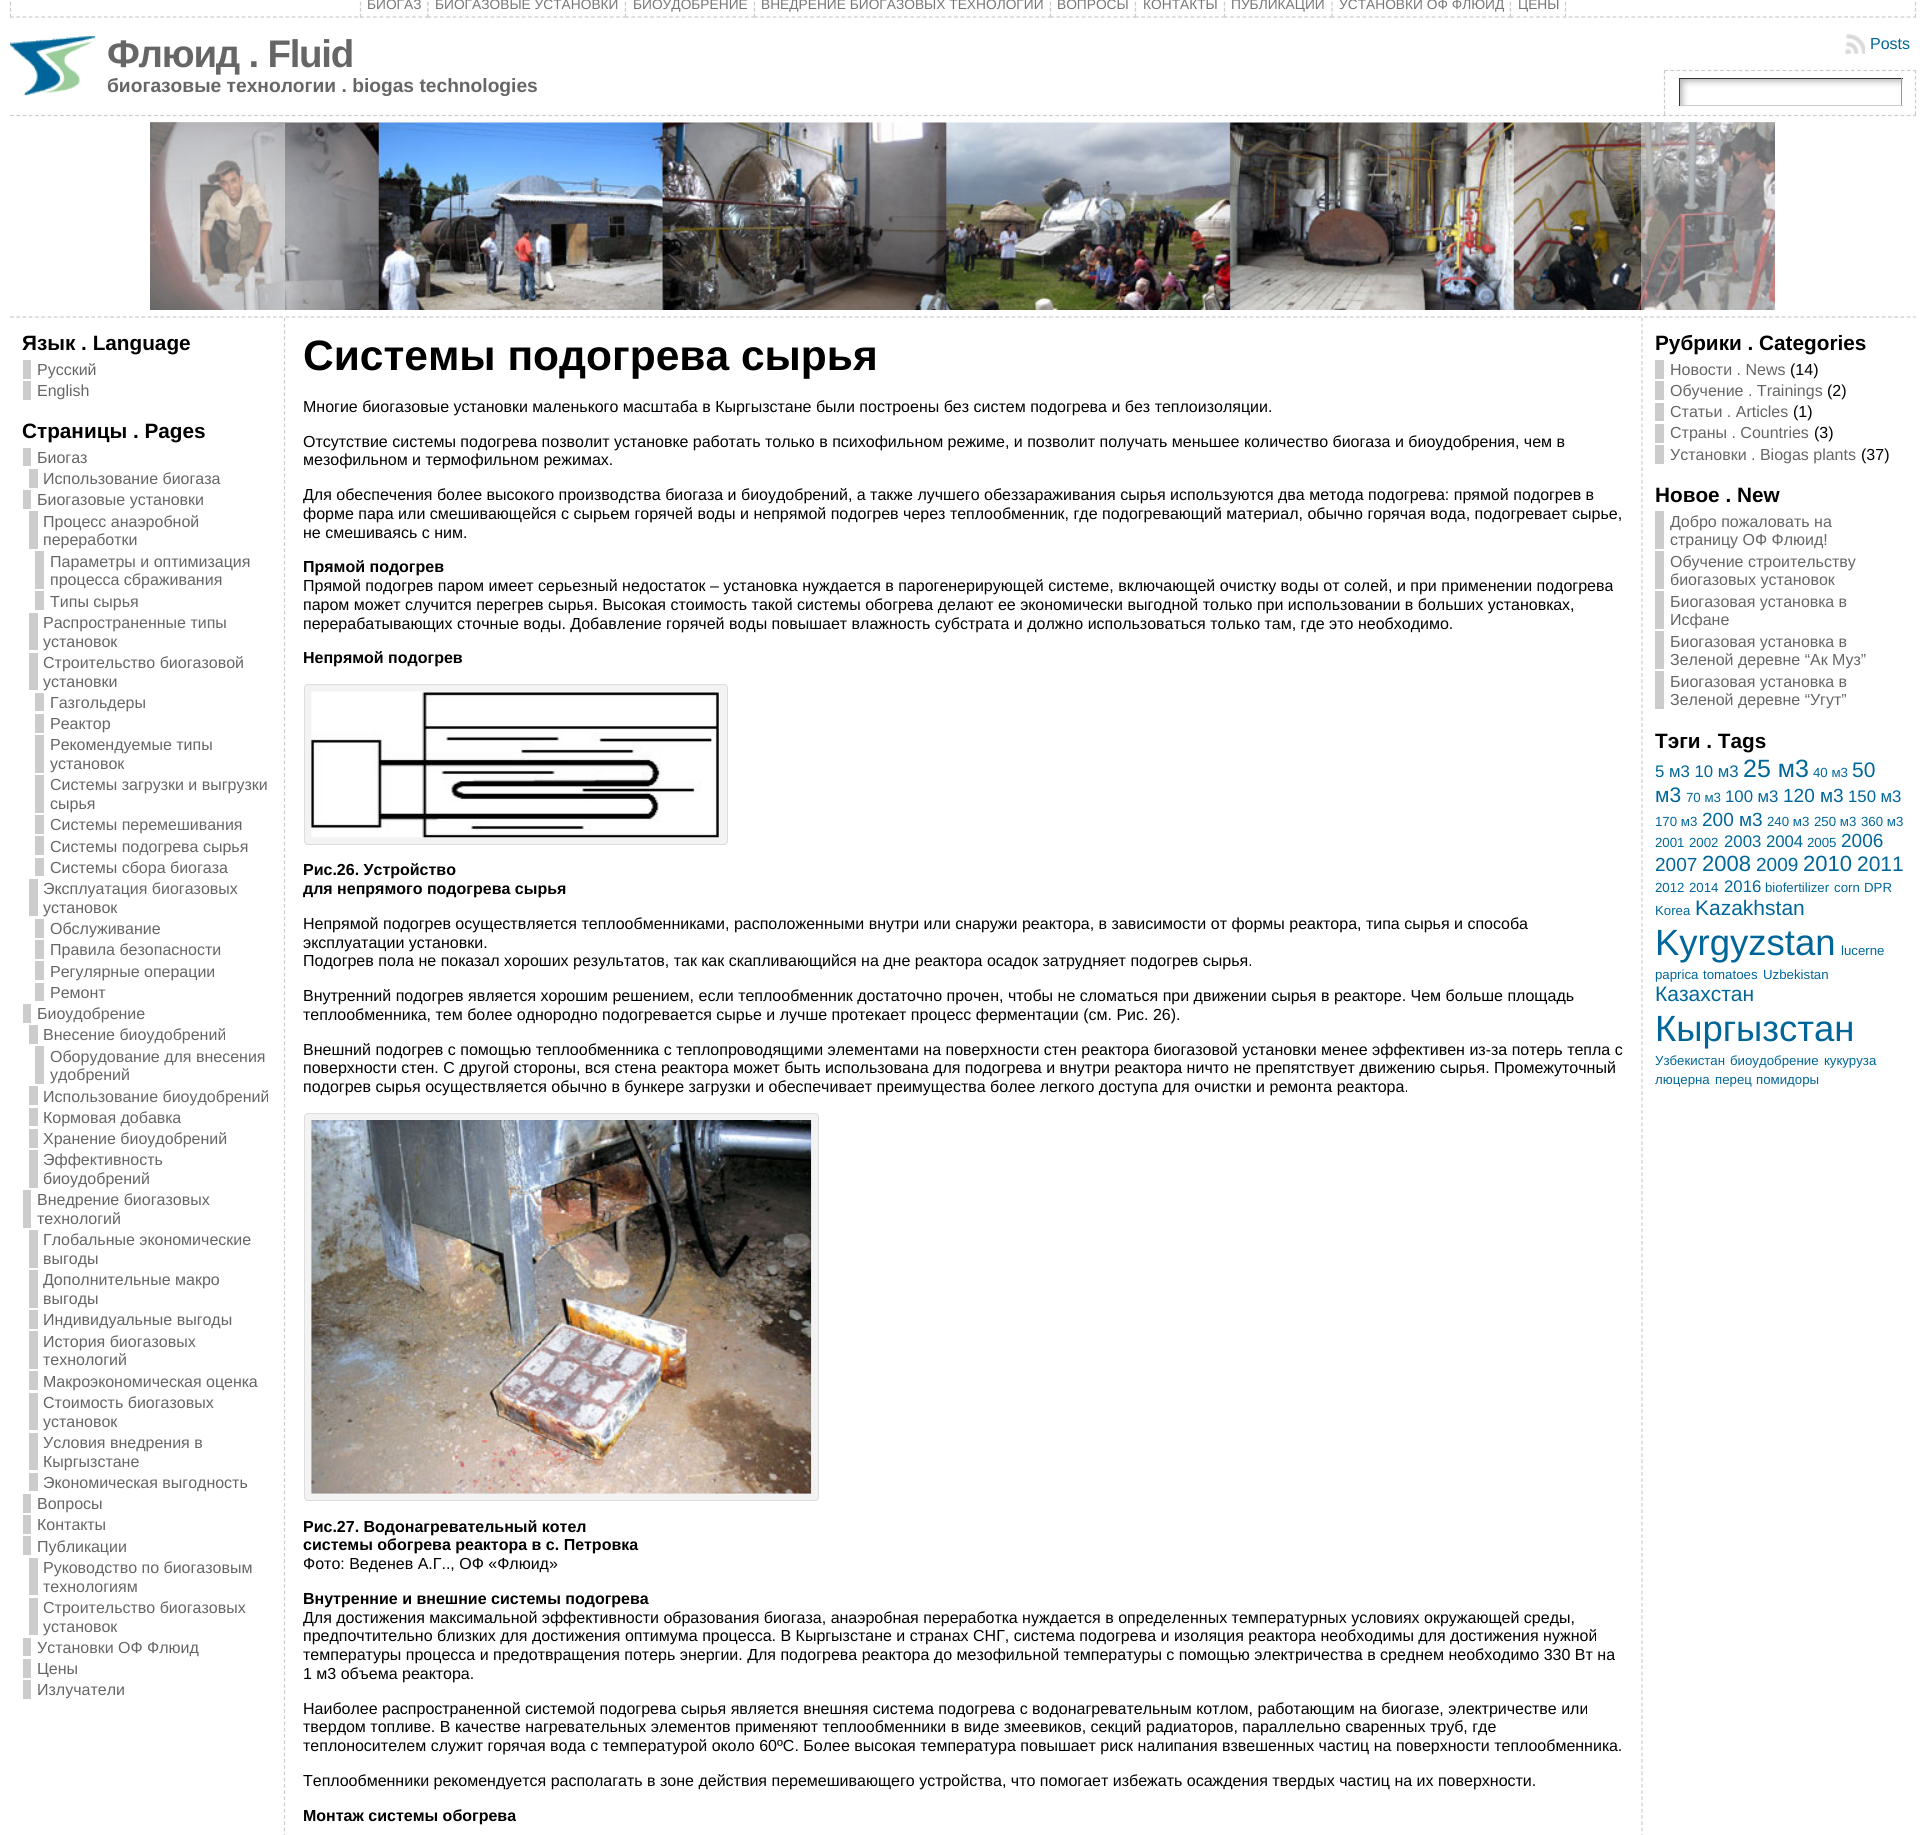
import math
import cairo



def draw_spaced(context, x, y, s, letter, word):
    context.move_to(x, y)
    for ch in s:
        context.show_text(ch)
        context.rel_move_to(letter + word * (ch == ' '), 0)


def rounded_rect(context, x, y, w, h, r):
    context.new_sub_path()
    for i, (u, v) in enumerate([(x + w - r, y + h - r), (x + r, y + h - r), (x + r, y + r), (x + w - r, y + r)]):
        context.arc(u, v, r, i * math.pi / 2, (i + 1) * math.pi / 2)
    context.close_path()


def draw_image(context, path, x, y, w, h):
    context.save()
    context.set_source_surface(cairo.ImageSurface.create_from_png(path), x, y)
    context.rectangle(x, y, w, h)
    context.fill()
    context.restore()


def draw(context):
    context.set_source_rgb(1, 1, 1)
    context.paint()
    context.new_path()
    context.move_to(1915.5, -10)
    context.line_to(1915.5, 17.5)
    context.set_source_rgb(204 / 255, 204 / 255, 204 / 255)
    context.set_line_width(1.2)
    context.set_dash([3.75, 2.19])
    context.stroke()
    context.new_path()
    context.move_to(10, 17)
    context.line_to(1916, 17)
    context.set_dash([3.75, 2.51])
    context.stroke()
    context.new_path()
    context.move_to(10.5, -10)
    context.line_to(10.5, 17.5)
    context.set_dash([3.75, 2.19])
    context.stroke()
    context.set_source_rgb(1, 1, 1)
    context.rectangle(360, 16, 67, 2)
    context.fill()
    context.new_path()
    context.move_to(428, -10)
    context.line_to(428, 17.5)
    context.set_source_rgb(204 / 255, 204 / 255, 204 / 255)
    context.stroke()
    context.new_path()
    context.move_to(360, 17)
    context.line_to(429, 17)
    context.set_dash([3.75, 2.75])
    context.stroke()
    context.new_path()
    context.move_to(360.5, -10)
    context.line_to(360.5, 17.5)
    context.set_dash([3.75, 2.19])
    context.stroke()
    context.set_source_rgb(1, 1, 1)
    context.rectangle(428, 1, 197, 17)
    context.fill()
    context.new_path()
    context.move_to(625.5, -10)
    context.line_to(625.5, 17.5)
    context.set_source_rgb(204 / 255, 204 / 255, 204 / 255)
    context.stroke()
    context.new_path()
    context.move_to(427.5, 17)
    context.line_to(626, 17)
    context.set_dash([3.75, 2.54])
    context.stroke()
    context.new_path()
    context.move_to(428, -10)
    context.line_to(428, 17.5)
    context.set_dash([3.75, 2.19])
    context.stroke()
    context.set_source_rgb(1, 1, 1)
    context.rectangle(625, 1, 128, 17)
    context.fill()
    context.new_path()
    context.move_to(754.5, -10)
    context.line_to(754.5, 17.5)
    context.set_source_rgb(204 / 255, 204 / 255, 204 / 255)
    context.stroke()
    context.new_path()
    context.move_to(625, 17)
    context.line_to(755, 17)
    context.set_dash([3.75, 2.56])
    context.stroke()
    context.new_path()
    context.move_to(625.5, -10)
    context.line_to(625.5, 17.5)
    context.set_dash([3.75, 2.19])
    context.stroke()
    context.set_source_rgb(1, 1, 1)
    context.rectangle(754, 1, 296, 17)
    context.fill()
    context.new_path()
    context.move_to(1050.5, -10)
    context.line_to(1050.5, 17.5)
    context.set_source_rgb(204 / 255, 204 / 255, 204 / 255)
    context.stroke()
    context.new_path()
    context.move_to(754, 17)
    context.line_to(1051, 17)
    context.set_dash([3.75, 2.5])
    context.stroke()
    context.new_path()
    context.move_to(754.5, -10)
    context.line_to(754.5, 17.5)
    context.set_dash([3.75, 2.19])
    context.stroke()
    context.set_source_rgb(1, 1, 1)
    context.rectangle(1050, 1, 85, 17)
    context.fill()
    context.new_path()
    context.move_to(1135.5, -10)
    context.line_to(1135.5, 17.5)
    context.set_source_rgb(204 / 255, 204 / 255, 204 / 255)
    context.stroke()
    context.new_path()
    context.move_to(1050, 17)
    context.line_to(1136, 17)
    context.set_dash([3.75, 2.6])
    context.stroke()
    context.new_path()
    context.move_to(1050.5, -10)
    context.line_to(1050.5, 17.5)
    context.set_dash([3.75, 2.19])
    context.stroke()
    context.set_source_rgb(1, 1, 1)
    context.rectangle(1135, 1, 87, 17)
    context.fill()
    context.new_path()
    context.move_to(1224.5, -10)
    context.line_to(1224.5, 17.5)
    context.set_source_rgb(204 / 255, 204 / 255, 204 / 255)
    context.stroke()
    context.new_path()
    context.move_to(1135, 17)
    context.line_to(1225, 17)
    context.set_dash([3.75, 2.41])
    context.stroke()
    context.new_path()
    context.move_to(1135.5, -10)
    context.line_to(1135.5, 17.5)
    context.set_dash([3.75, 2.19])
    context.stroke()
    context.set_source_rgb(1, 1, 1)
    context.rectangle(1224, 1, 107, 17)
    context.fill()
    context.new_path()
    context.move_to(1224, 17)
    context.line_to(1332.5, 17)
    context.set_source_rgb(204 / 255, 204 / 255, 204 / 255)
    context.set_dash([3.75, 2.42])
    context.stroke()
    context.new_path()
    context.move_to(1224.5, -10)
    context.line_to(1224.5, 17.5)
    context.set_dash([3.75, 2.19])
    context.stroke()
    context.set_source_rgb(1, 1, 1)
    context.rectangle(1331, 16, 179, 2)
    context.fill()
    context.new_path()
    context.move_to(1510.5, -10)
    context.line_to(1510.5, 17.5)
    context.set_source_rgb(204 / 255, 204 / 255, 204 / 255)
    context.stroke()
    context.new_path()
    context.move_to(1331, 17)
    context.line_to(1511, 17)
    context.set_dash([3.75, 2.55])
    context.stroke()
    context.new_path()
    context.move_to(1332, -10)
    context.line_to(1332, 17.5)
    context.set_dash([3.75, 2.19])
    context.stroke()
    context.set_source_rgb(1, 1, 1)
    context.rectangle(1510, 1, 56, 17)
    context.fill()
    context.new_path()
    context.move_to(1565.5, -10)
    context.line_to(1565.5, 17.5)
    context.set_source_rgb(204 / 255, 204 / 255, 204 / 255)
    context.stroke()
    context.new_path()
    context.move_to(1510, 17)
    context.line_to(1566, 17)
    context.set_dash([3.75, 2.81])
    context.stroke()
    context.new_path()
    context.move_to(1510.5, -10)
    context.line_to(1510.5, 17.5)
    context.set_dash([3.75, 2.19])
    context.stroke()
    draw_image(context, "images/1.png", 10, 36, 85, 60)
    draw_image(context, "images/2.png", 1845, 33, 20, 21)
    context.new_path()
    context.move_to(1664, 70.5)
    context.line_to(1916, 70.5)
    context.set_dash([3.75, 2.48])
    context.stroke()
    context.new_path()
    context.move_to(1915.5, 70)
    context.line_to(1915.5, 115)
    context.set_dash([3.75, 2.14])
    context.stroke()
    context.new_path()
    context.move_to(1664.5, 70)
    context.line_to(1664.5, 115)
    context.stroke()
    draw_image(context, "images/3.png", 1680, 79, 223, 28)
    context.set_source_rgb(51 / 255, 51 / 255, 51 / 255)
    context.rectangle(1679, 78, 224, 1)
    context.fill()
    context.set_source_rgb(153 / 255, 153 / 255, 153 / 255)
    context.rectangle(1901, 78, 1, 28)
    context.fill()
    context.set_source_rgb(204 / 255, 204 / 255, 204 / 255)
    context.rectangle(1679, 105, 224, 1)
    context.fill()
    context.set_source_rgb(51 / 255, 51 / 255, 51 / 255)
    context.rectangle(1679, 78, 1, 28)
    context.fill()
    context.new_path()
    context.move_to(10, 115.5)
    context.line_to(1916, 115.5)
    context.set_source_rgb(204 / 255, 204 / 255, 204 / 255)
    context.set_dash([3.75, 2.51])
    context.stroke()
    draw_image(context, "images/4.png", 150, 122, 1625, 188)
    context.set_source_rgba(1, 1, 1, 0.4)
    context.rectangle(150, 123, 135, 187)
    context.fill()
    context.rectangle(1641, 123, 134, 187)
    context.fill()
    context.new_path()
    context.move_to(284.5, 317.5)
    context.line_to(284.5, 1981)
    context.set_source_rgb(204 / 255, 204 / 255, 204 / 255)
    context.set_dash([3.75, 2.49])
    context.stroke()
    context.new_path()
    context.move_to(1642, 317.5)
    context.line_to(1642, 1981)
    context.stroke()
    context.set_source_rgb(1, 1, 1)
    context.rectangle(284, 317, 1359, 1)
    context.fill()
    context.new_path()
    context.move_to(10, 317)
    context.line_to(1916, 317)
    context.set_source_rgb(204 / 255, 204 / 255, 204 / 255)
    context.set_dash([3.75, 2.51])
    context.stroke()
    context.rectangle(23, 360, 8, 19)
    context.fill()
    context.rectangle(23, 381, 8, 19)
    context.fill()
    context.rectangle(23, 448, 8, 18)
    context.fill()
    context.rectangle(29, 469, 9, 19)
    context.fill()
    context.rectangle(23, 490, 8, 19)
    context.fill()
    context.rectangle(29, 511, 9, 38)
    context.fill()
    context.rectangle(35, 551, 9, 38)
    context.fill()
    context.rectangle(35, 591, 9, 19)
    context.fill()
    context.rectangle(29, 613, 9, 37)
    context.fill()
    context.rectangle(29, 653, 9, 37)
    context.fill()
    context.rectangle(35, 693, 9, 18)
    context.fill()
    context.rectangle(35, 714, 9, 19)
    context.fill()
    context.rectangle(35, 735, 9, 38)
    context.fill()
    context.rectangle(35, 775, 9, 38)
    context.fill()
    context.rectangle(35, 815, 9, 19)
    context.fill()
    context.rectangle(35, 836, 9, 19)
    context.fill()
    context.rectangle(35, 858, 9, 18)
    context.fill()
    context.rectangle(29, 879, 9, 37)
    context.fill()
    context.rectangle(35, 919, 9, 19)
    context.fill()
    context.rectangle(35, 940, 9, 19)
    context.fill()
    context.rectangle(35, 961, 9, 19)
    context.fill()
    context.rectangle(35, 983, 9, 18)
    context.fill()
    context.rectangle(23, 1004, 8, 19)
    context.fill()
    context.rectangle(29, 1025, 9, 19)
    context.fill()
    context.rectangle(35, 1046, 9, 38)
    context.fill()
    context.rectangle(29, 1086, 9, 19)
    context.fill()
    context.rectangle(29, 1108, 9, 18)
    context.fill()
    context.rectangle(29, 1129, 9, 19)
    context.fill()
    context.rectangle(29, 1150, 9, 38)
    context.fill()
    context.rectangle(23, 1190, 8, 38)
    context.fill()
    context.rectangle(29, 1230, 9, 38)
    context.fill()
    context.rectangle(29, 1270, 9, 38)
    context.fill()
    context.rectangle(29, 1310, 9, 19)
    context.fill()
    context.rectangle(29, 1331, 9, 38)
    context.fill()
    context.rectangle(29, 1371, 9, 19)
    context.fill()
    context.rectangle(29, 1393, 9, 37)
    context.fill()
    context.rectangle(29, 1433, 9, 37)
    context.fill()
    context.rectangle(29, 1473, 9, 18)
    context.fill()
    context.rectangle(23, 1494, 8, 19)
    context.fill()
    context.rectangle(23, 1515, 8, 19)
    context.fill()
    context.rectangle(23, 1536, 8, 19)
    context.fill()
    context.rectangle(29, 1558, 9, 37)
    context.fill()
    context.rectangle(29, 1598, 9, 37)
    context.fill()
    context.rectangle(23, 1638, 8, 18)
    context.fill()
    context.rectangle(23, 1659, 8, 19)
    context.fill()
    context.rectangle(23, 1680, 8, 19)
    context.fill()
    context.set_source_rgb(243 / 255, 243 / 255, 243 / 255)
    rounded_rect(context, 304.5, 684.5, 423, 160, 3.5)
    context.fill_preserve()
    context.set_source_rgb(221 / 255, 221 / 255, 221 / 255)
    context.set_line_width(1)
    context.set_dash([])
    context.stroke()
    draw_image(context, "images/5.png", 311, 691, 409, 147)
    context.set_source_rgb(243 / 255, 243 / 255, 243 / 255)
    rounded_rect(context, 304.5, 1113.5, 514, 387, 3.5)
    context.fill_preserve()
    context.set_source_rgb(221 / 255, 221 / 255, 221 / 255)
    context.stroke()
    draw_image(context, "images/6.png", 311, 1120, 501, 374)
    context.set_source_rgb(204 / 255, 204 / 255, 204 / 255)
    context.rectangle(1655, 360, 9, 19)
    context.fill()
    context.rectangle(1655, 381, 9, 19)
    context.fill()
    context.rectangle(1655, 403, 9, 18)
    context.fill()
    context.rectangle(1655, 424, 9, 19)
    context.fill()
    context.rectangle(1655, 445, 9, 19)
    context.fill()
    context.rectangle(1655, 511, 9, 38)
    context.fill()
    context.rectangle(1655, 551, 9, 38)
    context.fill()
    context.rectangle(1655, 591, 9, 38)
    context.fill()
    context.rectangle(1655, 631, 9, 38)
    context.fill()
    context.rectangle(1655, 671, 9, 38)
    context.fill()
    context.select_font_face("Liberation Sans")
    context.set_font_size(13.75)
    context.set_source_rgb(119 / 255, 119 / 255, 119 / 255)
    context.move_to(367, 9)
    context.show_text("БИОГАЗ")
    context.move_to(435, 9)
    context.show_text("БИОГАЗОВЫЕ УСТАНОВКИ")
    context.move_to(633, 9)
    context.show_text("БИОУДОБРЕНИЕ")
    context.move_to(761, 9)
    context.show_text("ВНЕДРЕНИЕ БИОГАЗОВЫХ ТЕХНОЛОГИЙ")
    context.move_to(1057, 9)
    context.show_text("ВОПРОСЫ")
    context.move_to(1143, 9)
    context.show_text("КОНТАКТЫ")
    context.move_to(1231, 9)
    context.show_text("ПУБЛИКАЦИИ")
    context.move_to(1339, 9)
    context.show_text("УСТАНОВКИ ОФ ФЛЮИД")
    context.move_to(1518, 9)
    context.show_text("ЦЕНЫ")
    context.select_font_face("Liberation Sans", cairo.FontSlant.NORMAL, cairo.FontWeight.BOLD)
    context.set_font_size(38.5)
    context.set_source_rgb(102 / 255, 102 / 255, 102 / 255)
    draw_spaced(context, 107, 67, "Флюид . Fluid", -1.25, 0)
    context.set_font_size(19.2)
    context.move_to(107, 92)
    context.show_text("биогазовые технологии . biogas technologies")
    context.select_font_face("Liberation Sans")
    context.set_font_size(16)
    context.set_source_rgb(0, 102 / 255, 153 / 255)
    context.move_to(1870, 49)
    context.show_text("Posts")
    context.select_font_face("Liberation Sans", cairo.FontSlant.NORMAL, cairo.FontWeight.BOLD)
    context.set_font_size(20.75)
    context.set_source_rgb(0, 0, 0)
    context.move_to(22, 350)
    context.show_text("Язык . Language")
    context.select_font_face("Liberation Sans")
    context.set_font_size(16)
    context.set_source_rgb(102 / 255, 102 / 255, 102 / 255)
    context.move_to(37, 375)
    context.show_text("Русский")
    context.move_to(37, 396)
    context.show_text("English")
    context.select_font_face("Liberation Sans", cairo.FontSlant.NORMAL, cairo.FontWeight.BOLD)
    context.set_font_size(20.75)
    context.set_source_rgb(0, 0, 0)
    context.move_to(22, 438)
    context.show_text("Страницы . Pages")
    context.select_font_face("Liberation Sans")
    context.set_font_size(16)
    context.set_source_rgb(102 / 255, 102 / 255, 102 / 255)
    context.move_to(37, 463)
    context.show_text("Биогаз")
    context.move_to(43, 484)
    context.show_text("Использование биогаза")
    context.move_to(37, 505)
    context.show_text("Биогазовые установки")
    context.move_to(43, 527)
    context.show_text("Процесс анаэробной")
    context.move_to(43, 545)
    context.show_text("переработки")
    context.move_to(50, 567)
    context.show_text("Параметры и оптимизация")
    context.move_to(50, 585)
    context.show_text("процесса сбраживания")
    context.move_to(50, 607)
    context.show_text("Типы сырья")
    context.move_to(43, 628)
    context.show_text("Распространенные типы")
    context.move_to(43, 647)
    context.show_text("установок")
    context.move_to(43, 668)
    context.show_text("Строительство биогазовой")
    context.move_to(43, 687)
    context.show_text("установки")
    context.move_to(50, 708)
    context.show_text("Газгольдеры")
    context.move_to(50, 729)
    context.show_text("Реактор")
    context.move_to(50, 750)
    context.show_text("Рекомендуемые типы")
    context.move_to(50, 769)
    context.show_text("установок")
    context.move_to(50, 790)
    context.show_text("Системы загрузки и выгрузки")
    context.move_to(50, 809)
    context.show_text("сырья")
    context.move_to(50, 830)
    context.show_text("Системы перемешивания")
    context.move_to(50, 852)
    context.show_text("Системы подогрева сырья")
    context.move_to(50, 873)
    context.show_text("Системы сбора биогаза")
    context.move_to(43, 894)
    context.show_text("Эксплуатация биогазовых")
    context.move_to(43, 913)
    context.show_text("установок")
    context.move_to(50, 934)
    context.show_text("Обслуживание")
    context.move_to(50, 955)
    context.show_text("Правила безопасности")
    context.move_to(50, 977)
    context.show_text("Регулярные операции")
    context.move_to(50, 998)
    context.show_text("Ремонт")
    context.move_to(37, 1019)
    context.show_text("Биоудобрение")
    context.move_to(43, 1040)
    context.show_text("Внесение биоудобрений")
    context.move_to(50, 1062)
    context.show_text("Оборудование для внесения")
    context.move_to(50, 1080)
    context.show_text("удобрений")
    context.move_to(43, 1102)
    context.show_text("Использование биоудобрений")
    context.move_to(43, 1123)
    context.show_text("Кормовая добавка")
    context.move_to(43, 1144)
    context.show_text("Хранение биоудобрений")
    context.move_to(43, 1165)
    context.show_text("Эффективность")
    context.move_to(43, 1184)
    context.show_text("биоудобрений")
    context.move_to(37, 1205)
    context.show_text("Внедрение биогазовых")
    context.move_to(37, 1224)
    context.show_text("технологий")
    context.move_to(43, 1245)
    context.show_text("Глобальные экономические")
    context.move_to(43, 1264)
    context.show_text("выгоды")
    context.move_to(43, 1285)
    context.show_text("Дополнительные макро")
    context.move_to(43, 1304)
    context.show_text("выгоды")
    context.move_to(43, 1325)
    context.show_text("Индивидуальные выгоды")
    context.move_to(43, 1347)
    context.show_text("История биогазовых")
    context.move_to(43, 1365)
    context.show_text("технологий")
    context.move_to(43, 1387)
    context.show_text("Макроэкономическая оценка")
    context.move_to(43, 1408)
    context.show_text("Стоимость биогазовых")
    context.move_to(43, 1427)
    context.show_text("установок")
    context.move_to(43, 1448)
    context.show_text("Условия внедрения в")
    context.move_to(43, 1467)
    context.show_text("Кыргызстане")
    context.move_to(43, 1488)
    context.show_text("Экономическая выгодность")
    context.move_to(37, 1509)
    context.show_text("Вопросы")
    context.move_to(37, 1530)
    context.show_text("Контакты")
    context.move_to(37, 1552)
    context.show_text("Публикации")
    context.move_to(43, 1573)
    context.show_text("Руководство по биогазовым")
    context.move_to(43, 1592)
    context.show_text("технологиям")
    context.move_to(43, 1613)
    context.show_text("Строительство биогазовых")
    context.move_to(43, 1632)
    context.show_text("установок")
    context.move_to(37, 1653)
    context.show_text("Установки ОФ Флюид")
    context.move_to(37, 1674)
    context.show_text("Цены")
    context.move_to(37, 1695)
    context.show_text("Излучатели")
    context.select_font_face("Liberation Sans", cairo.FontSlant.NORMAL, cairo.FontWeight.BOLD)
    context.set_font_size(42.5)
    context.set_source_rgb(0, 0, 0)
    context.move_to(303, 370)
    context.show_text("Системы подогрева сырья")
    context.select_font_face("Liberation Sans")
    context.set_font_size(16)
    context.move_to(303, 412)
    context.show_text("Многие биогазовые установки маленького масштаба в Кыргызстане были построены без систем подогрева и без теплоизоляции.")
    context.move_to(303, 447)
    context.show_text("Отсутствие системы подогрева позволит установке работать только в психофильном режиме, и позволит получать меньшее количество биогаза и биоудобрения, чем в")
    context.move_to(303, 465)
    context.show_text("мезофильном и термофильном режимах.")
    context.move_to(303, 500)
    context.show_text("Для обеспечения более высокого производства биогаза и биоудобрений, а также лучшего обеззараживания сырья используются два метода подогрева: прямой подогрев в")
    context.move_to(303, 519)
    context.show_text("форме пара или смешивающейся с сырьем горячей воды и непрямой подогрев через теплообменник, где подогревающий материал, обычно горячая вода, подогревает сырье,")
    context.move_to(303, 538)
    context.show_text("не смешиваясь с ним.")
    context.select_font_face("Liberation Sans", cairo.FontSlant.NORMAL, cairo.FontWeight.BOLD)
    context.move_to(303, 572)
    context.show_text("Прямой подогрев")
    context.select_font_face("Liberation Sans")
    context.move_to(303, 591)
    context.show_text("Прямой подогрев паром имеет серьезный недостаток – установка нуждается в парогенерирующей системе, включающей очистку воды от солей, и при применении подогрева")
    context.move_to(303, 610)
    context.show_text("паром может случится перегрев сырья. Высокая стоимость такой системы обогрева делают ее экономически выгодной только при использовании в больших установках,")
    context.move_to(303, 629)
    context.show_text("перерабатывающих сточные воды. Добавление горячей воды повышает влажность субстрата и должно использоваться только там, где это необходимо.")
    context.select_font_face("Liberation Sans", cairo.FontSlant.NORMAL, cairo.FontWeight.BOLD)
    context.move_to(303, 663)
    context.show_text("Непрямой подогрев")
    context.move_to(303, 875)
    context.show_text("Рис.26. Устройство")
    context.move_to(303, 894)
    context.show_text("для непрямого подогрева сырья")
    context.select_font_face("Liberation Sans")
    context.move_to(303, 929)
    context.show_text("Непрямой подогрев осуществляется теплообменниками, расположенными внутри или снаружи реактора, в зависимости от формы реактора, типа сырья и способа")
    context.move_to(303, 948)
    context.show_text("эксплуатации установки.")
    context.move_to(303, 966)
    context.show_text("Подогрев пола не показал хороших результатов, так как скапливающийся на дне реактора осадок затрудняет подогрев сырья.")
    context.move_to(303, 1001)
    context.show_text("Внутренний подогрев является хорошим решением, если теплообменник достаточно прочен, чтобы не сломаться при движении сырья в реакторе. Чем больше площадь")
    context.move_to(303, 1020)
    context.show_text("теплообменника, тем более однородно подогревается сырье и лучше протекает процесс ферментации (см. Рис. 26).")
    context.move_to(303, 1055)
    context.show_text("Внешний подогрев с помощью теплообменника с теплопроводящими элементами на поверхности стен реактора биогазовой установки менее эффективен из-за потерь тепла с")
    context.move_to(303, 1073)
    context.show_text("поверхности стен. С другой стороны, вся стена реактора может быть использована для подогрева и внутри реактора ничто не препятствует движению сырья. Промежуточный")
    context.move_to(303, 1092)
    context.show_text("подогрев сырья осуществляется обычно в бункере загрузки и обеспечивает преимущества более легкого доступа для очистки и ремонта реактора.")
    context.select_font_face("Liberation Sans", cairo.FontSlant.NORMAL, cairo.FontWeight.BOLD)
    context.move_to(303, 1532)
    context.show_text("Рис.27. Водонагревательный котел")
    context.move_to(303, 1550)
    context.show_text("системы обогрева реактора в с. Петровка")
    context.select_font_face("Liberation Sans")
    context.move_to(303, 1569)
    context.show_text("Фото: Веденев А.Г.., ОФ «Флюид»")
    context.select_font_face("Liberation Sans", cairo.FontSlant.NORMAL, cairo.FontWeight.BOLD)
    context.move_to(303, 1604)
    context.show_text("Внутренние и внешние системы подогрева")
    context.select_font_face("Liberation Sans")
    context.move_to(303, 1623)
    context.show_text("Для достижения максимальной эффективности образования биогаза, анаэробная переработка нуждается в определенных температурных условиях окружающей среды,")
    context.move_to(303, 1641)
    context.show_text("предпочтительно близких для достижения оптимума процесса. В Кыргызстане и странах СНГ, система подогрева и изоляция реактора необходимы для достижения нужной")
    context.move_to(303, 1660)
    context.show_text("температуры процесса и предотвращения потерь энергии. Для подогрева реактора до мезофильной температуры с помощью электричества в среднем необходимо 330 Вт на")
    context.move_to(303, 1679)
    context.show_text("1 м3 объема реактора.")
    context.move_to(303, 1714)
    context.show_text("Наиболее распространенной системой подогрева сырья является внешняя система подогрева с водонагревательным котлом, работающим на биогазе, электричестве или")
    context.move_to(303, 1732)
    context.show_text("твердом топливе. В качестве нагревательных элементов применяют теплообменники в виде змеевиков, секций радиаторов, параллельно сваренных труб, где")
    context.move_to(303, 1751)
    context.show_text("теплоносителем служит горячая вода с температурой около 60ºС. Более высокая температура повышает риск налипания взвешенных частиц на поверхности теплообменника.")
    context.move_to(303, 1786)
    context.show_text("Теплообменники рекомендуется располагать в зоне действия перемешивающего устройства, что помогает избежать осаждения твердых частиц на их поверхности.")
    context.select_font_face("Liberation Sans", cairo.FontSlant.NORMAL, cairo.FontWeight.BOLD)
    context.move_to(303, 1821)
    context.show_text("Монтаж системы обогрева")
    context.set_font_size(20.75)
    context.move_to(1655, 350)
    context.show_text("Рубрики . Categories")
    context.select_font_face("Liberation Sans")
    context.set_font_size(16)
    context.set_source_rgb(102 / 255, 102 / 255, 102 / 255)
    context.move_to(1670, 375)
    context.show_text("Новости . News")
    context.set_source_rgb(0, 0, 0)
    context.move_to(1790, 375)
    context.show_text("(14)")
    context.set_source_rgb(102 / 255, 102 / 255, 102 / 255)
    context.move_to(1670, 396)
    context.show_text("Обучение . Trainings")
    context.set_source_rgb(0, 0, 0)
    context.move_to(1827, 396)
    context.show_text("(2)")
    context.set_source_rgb(102 / 255, 102 / 255, 102 / 255)
    context.move_to(1670, 417)
    context.show_text("Статьи . Articles")
    context.set_source_rgb(0, 0, 0)
    context.move_to(1793, 417)
    context.show_text("(1)")
    context.set_source_rgb(102 / 255, 102 / 255, 102 / 255)
    context.move_to(1670, 438)
    context.show_text("Страны . Countries")
    context.set_source_rgb(0, 0, 0)
    context.move_to(1814, 438)
    context.show_text("(3)")
    context.set_source_rgb(102 / 255, 102 / 255, 102 / 255)
    context.move_to(1670, 460)
    context.show_text("Установки . Biogas plants")
    context.set_source_rgb(0, 0, 0)
    context.move_to(1861, 460)
    context.show_text("(37)")
    context.select_font_face("Liberation Sans", cairo.FontSlant.NORMAL, cairo.FontWeight.BOLD)
    context.set_font_size(20.75)
    context.move_to(1655, 502)
    context.show_text("Новое . New")
    context.select_font_face("Liberation Sans")
    context.set_font_size(16)
    context.set_source_rgb(102 / 255, 102 / 255, 102 / 255)
    context.move_to(1670, 527)
    context.show_text("Добро пожаловать на")
    context.move_to(1670, 545)
    context.show_text("страницу ОФ Флюид!")
    context.move_to(1670, 567)
    context.show_text("Обучение строительству")
    context.move_to(1670, 585)
    context.show_text("биогазовых установок")
    context.move_to(1670, 607)
    context.show_text("Биогазовая установка в")
    context.move_to(1670, 625)
    context.show_text("Исфане")
    context.move_to(1670, 647)
    context.show_text("Биогазовая установка в")
    context.move_to(1670, 665)
    context.show_text("Зеленой деревне “Ак Муз”")
    context.move_to(1670, 687)
    context.show_text("Биогазовая установка в")
    context.move_to(1670, 705)
    context.show_text("Зеленой деревне “Угут”")
    context.select_font_face("Liberation Sans", cairo.FontSlant.NORMAL, cairo.FontWeight.BOLD)
    context.set_font_size(20.75)
    context.set_source_rgb(0, 0, 0)
    context.move_to(1655, 748)
    context.show_text("Тэги . Tags")
    context.select_font_face("Liberation Sans")
    context.set_font_size(16.75)
    context.set_source_rgb(0, 102 / 255, 153 / 255)
    context.move_to(1655, 777)
    context.show_text("5 м3 10 м3")
    context.set_font_size(25)
    context.move_to(1743, 777)
    context.show_text("25 м3")
    context.set_font_size(13.25)
    context.move_to(1813, 777)
    context.show_text("40 м3")
    context.set_font_size(21)
    context.move_to(1852, 777)
    context.show_text("50")
    context.move_to(1655, 802)
    context.show_text("м3")
    context.set_font_size(13.25)
    context.move_to(1686, 802)
    context.show_text("70 м3")
    context.set_font_size(16.75)
    context.move_to(1725, 802)
    context.show_text("100 м3")
    context.set_font_size(19)
    context.move_to(1783, 802)
    context.show_text("120 м3")
    context.set_font_size(16.75)
    context.move_to(1848, 802)
    context.show_text("150 м3")
    context.set_font_size(13.25)
    context.move_to(1655, 826)
    context.show_text("170 м3")
    context.set_font_size(19)
    context.move_to(1702, 826)
    context.show_text("200 м3")
    context.set_font_size(13.25)
    context.move_to(1767, 826)
    context.show_text("240 м3")
    context.move_to(1814, 826)
    context.show_text("250 м3")
    context.move_to(1861, 826)
    context.show_text("360 м3")
    context.move_to(1655, 847)
    context.show_text("2001")
    context.move_to(1689, 847)
    context.show_text("2002")
    context.set_font_size(16.75)
    context.move_to(1724, 847)
    context.show_text("2003 2004")
    context.set_font_size(13.25)
    context.move_to(1807, 847)
    context.show_text("2005")
    context.set_font_size(19)
    context.move_to(1841, 847)
    context.show_text("2006")
    context.move_to(1655, 871)
    context.show_text("2007")
    context.set_font_size(22)
    context.move_to(1702, 871)
    context.show_text("2008")
    context.set_font_size(19)
    context.move_to(1756, 871)
    context.show_text("2009")
    context.set_font_size(22)
    context.move_to(1803, 871)
    context.show_text("2010")
    context.set_font_size(21)
    context.move_to(1857, 871)
    context.show_text("2011")
    context.set_font_size(13.25)
    context.move_to(1655, 892)
    context.show_text("2012")
    context.move_to(1689, 892)
    context.show_text("2014")
    context.set_font_size(16.75)
    context.move_to(1724, 892)
    context.show_text("2016")
    context.set_font_size(13.25)
    context.move_to(1765, 892)
    context.show_text("biofertilizer")
    context.move_to(1834, 892)
    context.show_text("corn")
    context.move_to(1864, 892)
    context.show_text("DPR")
    context.move_to(1655, 915)
    context.show_text("Korea")
    context.set_font_size(21)
    context.move_to(1695, 915)
    context.show_text("Kazakhstan")
    context.set_font_size(36.5)
    context.move_to(1655, 955)
    context.show_text("Kyrgyzstan")
    context.set_font_size(13.25)
    context.move_to(1841, 955)
    context.show_text("lucerne")
    context.move_to(1655, 979)
    context.show_text("paprica")
    context.move_to(1703, 979)
    context.show_text("tomatoes")
    context.move_to(1763, 979)
    context.show_text("Uzbekistan")
    context.set_font_size(21)
    context.move_to(1655, 1001)
    context.show_text("Казахстан")
    context.set_font_size(36.5)
    context.move_to(1655, 1041)
    context.show_text("Кыргызстан")
    context.set_font_size(13.25)
    context.move_to(1655, 1065)
    context.show_text("Узбекистан")
    context.move_to(1730, 1065)
    context.show_text("биоудобрение")
    context.move_to(1824, 1065)
    context.show_text("кукуруза")
    context.move_to(1655, 1084)
    context.show_text("люцерна")
    context.move_to(1715, 1084)
    context.show_text("перец")
    context.move_to(1756, 1084)
    context.show_text("помидоры")


surface = cairo.ImageSurface(cairo.Format.RGB24, 1926, 1835)
context = cairo.Context(surface)
options = cairo.FontOptions()
options.set_hint_metrics(cairo.HintMetrics.OFF)
options.set_hint_style(cairo.HintStyle.NONE)
context.set_font_options(options)
context.set_miter_limit(4)
draw(context)
surface.write_to_png("out.png")
